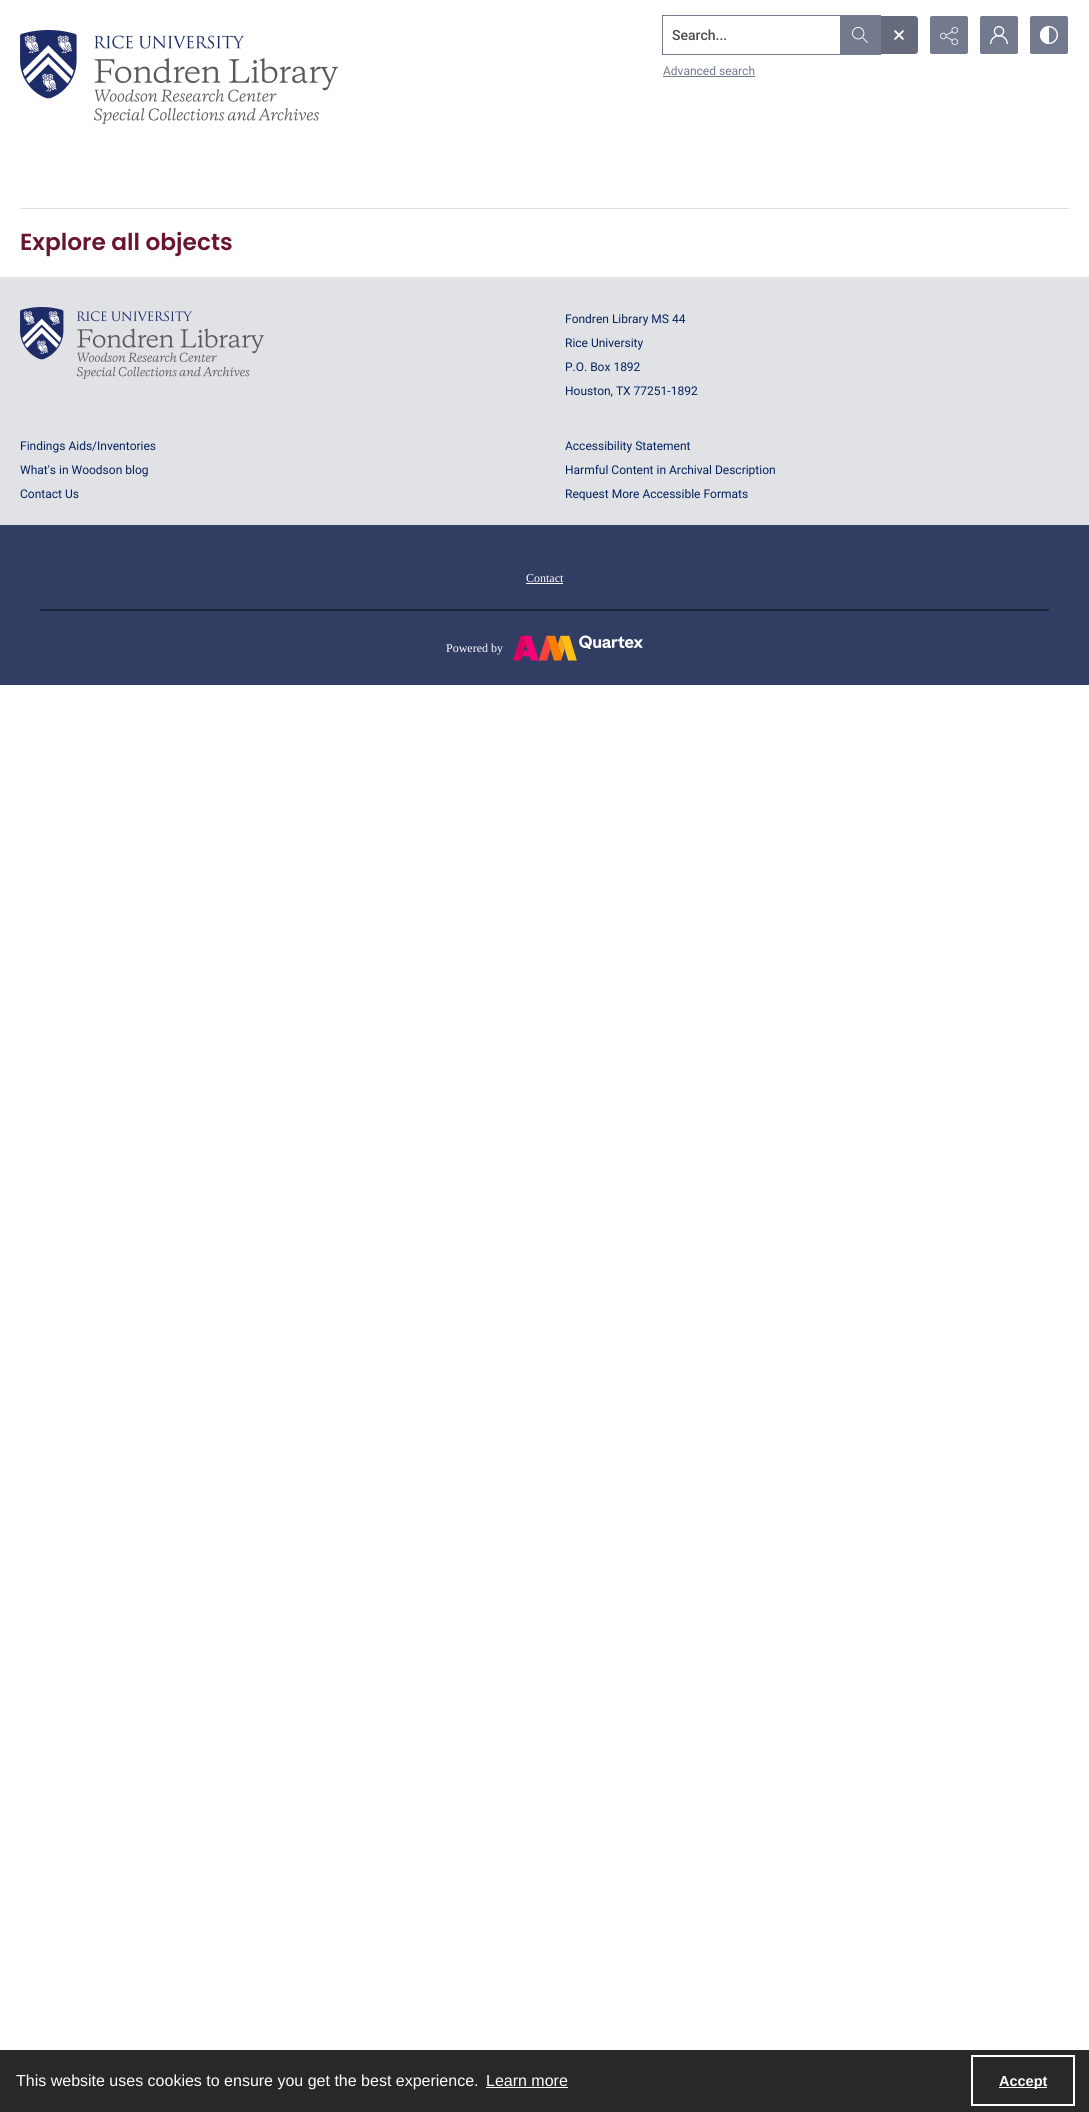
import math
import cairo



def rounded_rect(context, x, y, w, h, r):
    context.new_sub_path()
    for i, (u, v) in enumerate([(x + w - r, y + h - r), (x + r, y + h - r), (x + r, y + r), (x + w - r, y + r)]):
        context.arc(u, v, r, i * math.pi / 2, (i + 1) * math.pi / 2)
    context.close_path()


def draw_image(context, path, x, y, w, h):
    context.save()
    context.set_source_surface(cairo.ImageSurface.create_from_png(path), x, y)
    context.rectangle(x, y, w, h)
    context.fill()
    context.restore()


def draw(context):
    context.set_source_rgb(1, 1, 1)
    context.paint()
    draw_image(context, "images/1.png", 20, 30, 318, 94)
    context.set_source_rgb(101 / 255, 107 / 255, 124 / 255)
    context.new_path()
    context.move_to(880, 16)
    context.line_to(915, 16)
    context.curve_to(916.5, 16, 918, 17.5, 918, 19)
    context.line_to(918, 51)
    context.curve_to(918, 52.5, 916.5, 54, 915, 54)
    context.line_to(880, 54)
    context.close_path()
    context.fill()
    context.rectangle(662.5, 15.5, 218, 39)
    context.set_source_rgb(115 / 255, 122 / 255, 142 / 255)
    context.set_line_width(1)
    context.stroke()
    context.rectangle(840, 16, 40, 38)
    context.fill()
    draw_image(context, "images/2.png", 852, 27, 16, 16)
    context.rectangle(663, 76, 92, 1)
    context.fill()
    draw_image(context, "images/3.png", 894, 30, 10, 10)
    rounded_rect(context, 930, 16, 38, 38, 2)
    context.fill()
    draw_image(context, "images/4.png", 940, 27, 18, 18)
    rounded_rect(context, 980, 16, 38, 38, 2)
    context.fill()
    draw_image(context, "images/5.png", 990, 26, 18, 18)
    rounded_rect(context, 1030, 16, 38, 38, 2)
    context.fill()
    draw_image(context, "images/6.png", 1040, 26, 18, 18)
    context.set_source_rgb(223 / 255, 223 / 255, 223 / 255)
    context.rectangle(20, 208, 1049, 1)
    context.fill()
    context.set_source_rgb(224 / 255, 226 / 255, 230 / 255)
    context.rectangle(0, 277, 1089, 248)
    context.fill()
    draw_image(context, "images/7.png", 20, 307, 244, 72)
    context.set_source_rgb(50 / 255, 61 / 255, 99 / 255)
    context.rectangle(0, 525, 1089, 160)
    context.fill()
    context.set_source_rgb(1, 1, 1)
    context.rectangle(526, 583, 37, 1)
    context.fill()
    context.set_source_rgb(28 / 255, 34 / 255, 55 / 255)
    context.rectangle(40, 609, 1009, 2)
    context.fill()
    draw_image(context, "images/8.png", 513, 635, 130, 26)
    context.set_source_rgb(40 / 255, 40 / 255, 40 / 255)
    context.rectangle(0, 2050, 1089, 62)
    context.fill()
    context.set_source_rgb(1, 1, 1)
    context.rectangle(486, 2087, 82, 1)
    context.fill()
    context.rectangle(972, 2056, 102, 49)
    context.set_line_width(2)
    context.stroke()
    context.rectangle(999, 2087, 48, 1)
    context.fill()
    context.select_font_face("Roboto Medium")
    context.set_font_size(14)
    context.set_source_rgb(76 / 255, 76 / 255, 76 / 255)
    context.move_to(672, 40)
    context.show_text("Search...")
    context.select_font_face("Roboto")
    context.set_font_size(12)
    context.set_source_rgb(115 / 255, 122 / 255, 142 / 255)
    context.move_to(663, 75)
    context.show_text("Advanced search")
    context.select_font_face("Poppins SemiBold")
    context.set_font_size(23.25)
    context.set_source_rgb(106 / 255, 21 / 255, 48 / 255)
    context.move_to(20, 250)
    context.show_text("Explore all objects")
    context.select_font_face("Roboto")
    context.set_font_size(12)
    context.set_source_rgb(3 / 255, 34 / 255, 93 / 255)
    context.move_to(565, 323)
    context.show_text("Fondren Library MS 44")
    context.move_to(565, 347)
    context.show_text("Rice University")
    context.move_to(565, 371)
    context.show_text("P.O. Box 1892")
    context.move_to(565, 395)
    context.show_text("Houston, TX 77251-1892")
    context.move_to(20, 450)
    context.show_text("Findings Aids/Inventories")
    context.move_to(20, 474)
    context.show_text("What's in Woodson blog")
    context.move_to(20, 498)
    context.show_text("Contact Us")
    context.move_to(565, 450)
    context.show_text("Accessibility Statement")
    context.move_to(565, 474)
    context.show_text("Harmful Content in Archival Description")
    context.move_to(565, 498)
    context.show_text("Request More Accessible Formats")
    context.select_font_face("Liberation Serif")
    context.set_source_rgb(1, 1, 1)
    context.move_to(526, 582)
    context.show_text("Contact")
    context.move_to(446, 652)
    context.show_text("Powered by")
    context.select_font_face("Liberation Sans")
    context.set_font_size(16)
    context.move_to(16, 2086)
    context.show_text("This website uses cookies to ensure you get the best experience.")
    context.move_to(486, 2086)
    context.show_text("Learn more")
    context.select_font_face("Liberation Sans", cairo.FontSlant.NORMAL, cairo.FontWeight.BOLD)
    context.set_font_size(14.5)
    context.move_to(999, 2086)
    context.show_text("Accept")


surface = cairo.ImageSurface(cairo.Format.RGB24, 1089, 2112)
context = cairo.Context(surface)
options = cairo.FontOptions()
options.set_hint_metrics(cairo.HintMetrics.OFF)
options.set_hint_style(cairo.HintStyle.NONE)
context.set_font_options(options)
context.set_miter_limit(4)
draw(context)
surface.write_to_png("out.png")
